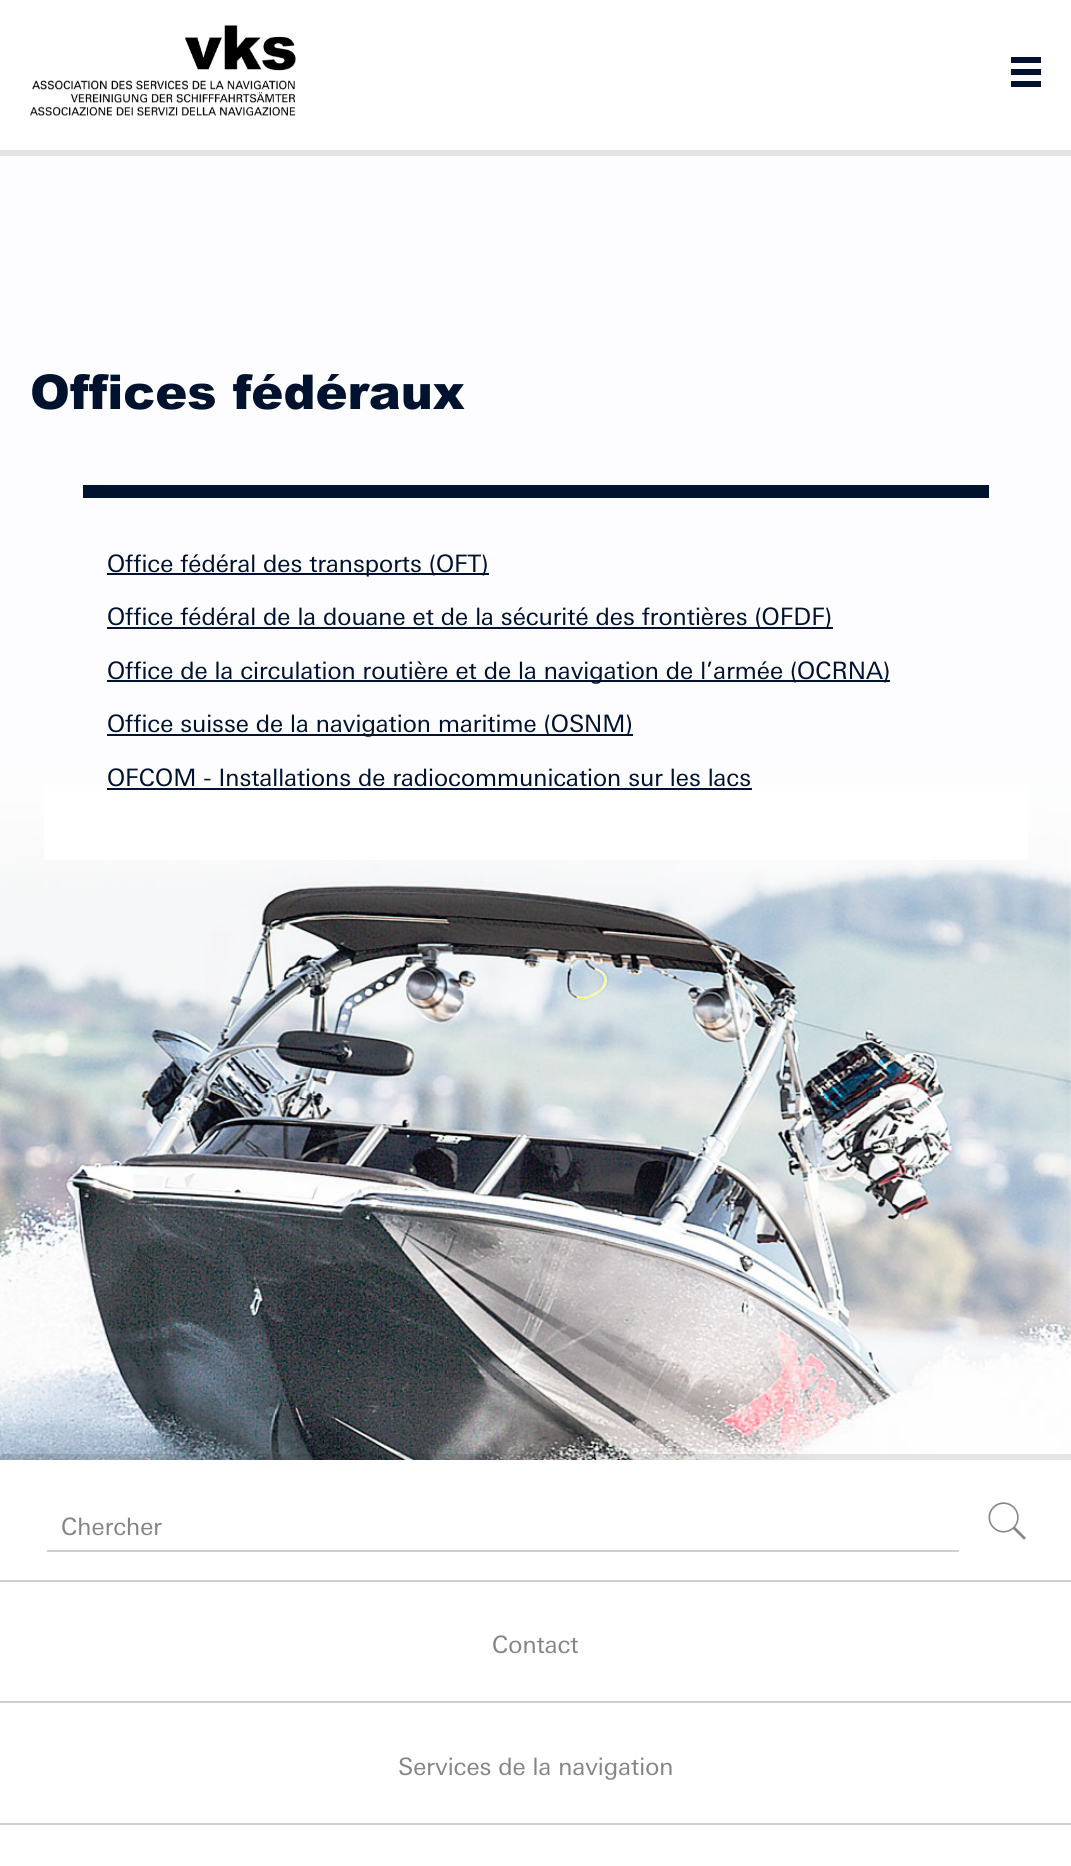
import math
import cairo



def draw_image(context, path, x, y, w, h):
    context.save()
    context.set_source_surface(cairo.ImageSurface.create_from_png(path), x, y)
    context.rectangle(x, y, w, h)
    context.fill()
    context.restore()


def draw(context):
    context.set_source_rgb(1, 1, 1)
    context.paint()
    context.set_source_rgb(228 / 255, 228 / 255, 230 / 255)
    context.rectangle(0, 150, 1071, 6)
    context.fill()
    draw_image(context, "images/1.png", 30, 25, 266, 91)
    context.set_source_rgb(0, 18 / 255, 45 / 255)
    context.rectangle(1011, 57, 30, 30)
    context.fill()
    context.set_source_rgb(1, 1, 1)
    context.rectangle(1011, 63, 30, 6)
    context.fill()
    context.rectangle(1011, 75, 30, 6)
    context.fill()
    draw_image(context, "images/2.png", 0, 156, 1071, 1304)
    context.rectangle(44, 786, 984, 74)
    context.fill()
    context.set_source_rgb(0, 18 / 255, 45 / 255)
    context.rectangle(83, 485, 906, 13)
    context.fill()
    context.rectangle(107, 573, 382, 2)
    context.fill()
    context.rectangle(107, 627, 726, 2)
    context.fill()
    context.rectangle(107, 680, 783, 2)
    context.fill()
    context.rectangle(107, 734, 526, 2)
    context.fill()
    context.rectangle(107, 788, 645, 2)
    context.fill()
    context.set_source_rgba(0, 0, 0, 0.1)
    context.rectangle(0, 1454, 1071, 6)
    context.fill()
    context.set_source_rgb(207 / 255, 207 / 255, 207 / 255)
    context.rectangle(47, 1550, 912, 2)
    context.fill()
    draw_image(context, "images/3.png", 988, 1502, 38, 38)
    context.rectangle(0, 1580, 1071, 2)
    context.fill()
    context.rectangle(0, 1701, 1071, 2)
    context.fill()
    context.rectangle(0, 1823, 1071, 2)
    context.fill()
    context.select_font_face("Arial Black")
    context.set_font_size(48)
    context.set_source_rgb(0, 18 / 255, 45 / 255)
    context.move_to(30, 409)
    context.show_text("Offices fédéraux")
    context.select_font_face("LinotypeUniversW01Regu")
    context.set_font_size(24)
    context.move_to(107, 572)
    context.show_text("Office fédéral des transports (OFT)")
    context.move_to(107, 625)
    context.show_text("Office fédéral de la douane et de la sécurité des frontières (OFDF)")
    context.move_to(107, 679)
    context.show_text("Office de la circulation routière et de la navigation de l’armée (OCRNA)")
    context.move_to(107, 732)
    context.show_text("Office suisse de la navigation maritime (OSNM)")
    context.move_to(107, 786)
    context.show_text("OFCOM - Installations de radiocommunication sur les lacs")
    context.set_source_rgb(133 / 255, 133 / 255, 133 / 255)
    context.move_to(61, 1535)
    context.show_text("Chercher")
    context.move_to(492, 1653)
    context.show_text("Contact")
    context.move_to(398, 1775)
    context.show_text("Services de la navigation")


surface = cairo.ImageSurface(cairo.Format.RGB24, 1071, 1866)
context = cairo.Context(surface)
options = cairo.FontOptions()
options.set_hint_metrics(cairo.HintMetrics.OFF)
options.set_hint_style(cairo.HintStyle.NONE)
context.set_font_options(options)
context.set_miter_limit(4)
draw(context)
surface.write_to_png("out.png")
